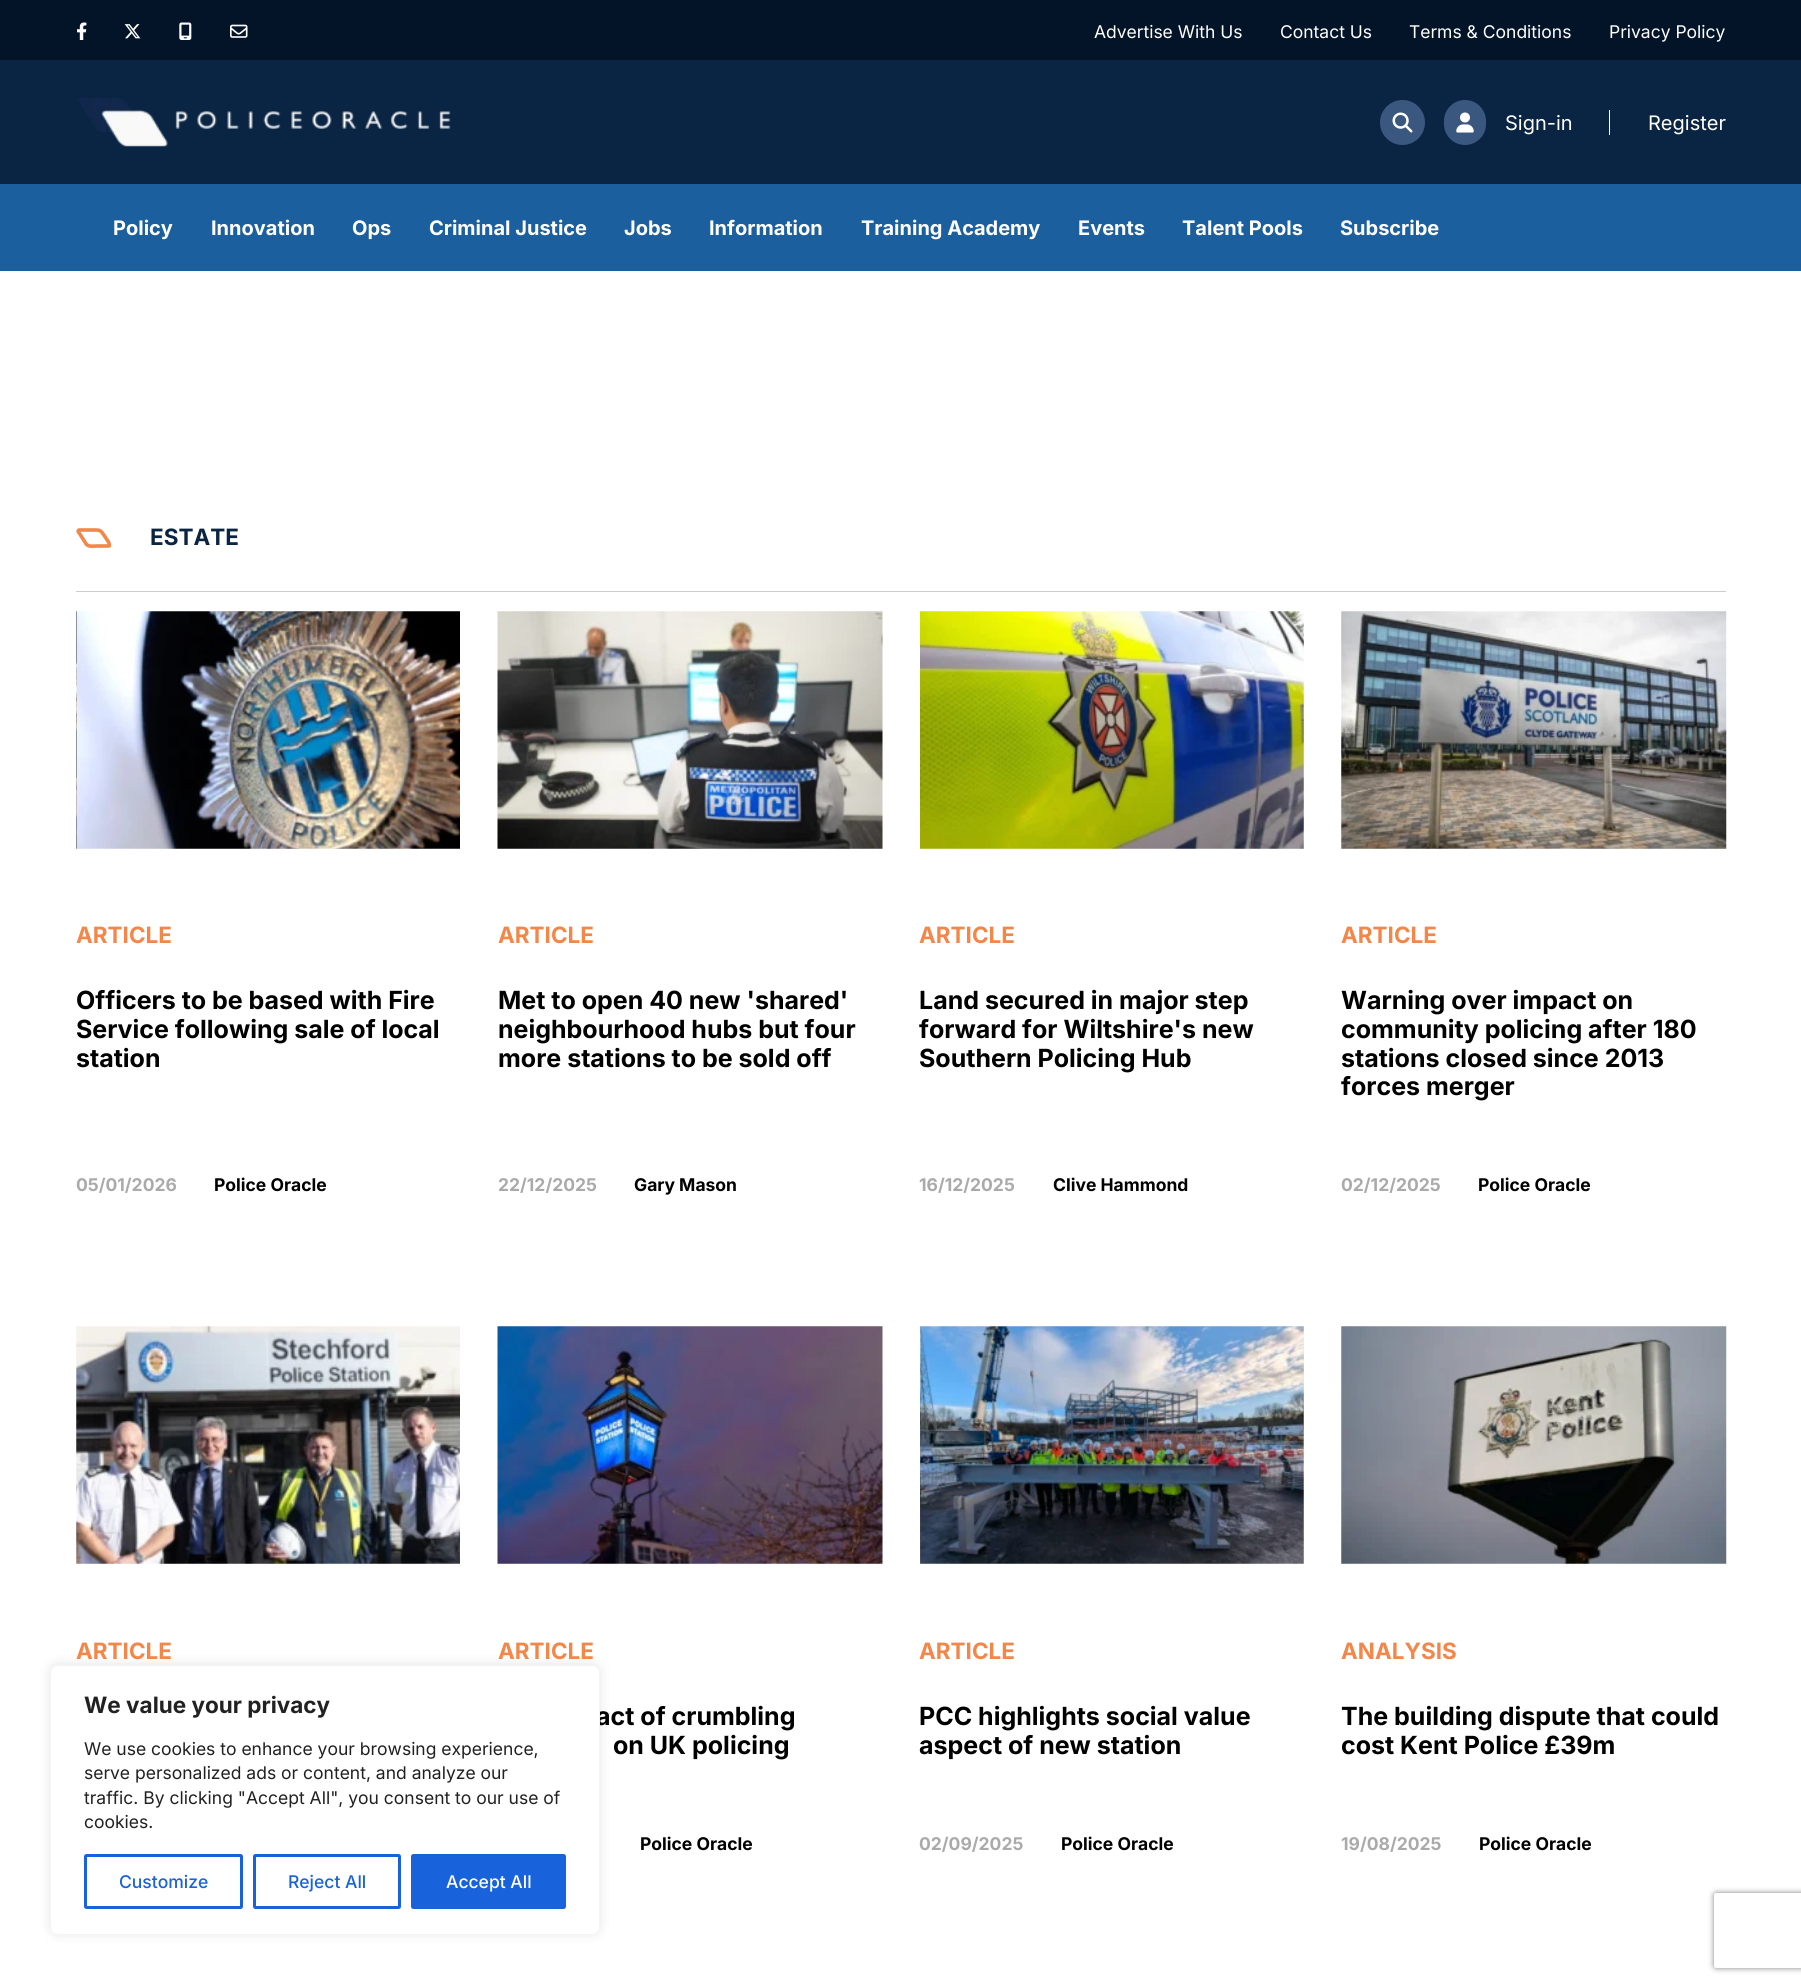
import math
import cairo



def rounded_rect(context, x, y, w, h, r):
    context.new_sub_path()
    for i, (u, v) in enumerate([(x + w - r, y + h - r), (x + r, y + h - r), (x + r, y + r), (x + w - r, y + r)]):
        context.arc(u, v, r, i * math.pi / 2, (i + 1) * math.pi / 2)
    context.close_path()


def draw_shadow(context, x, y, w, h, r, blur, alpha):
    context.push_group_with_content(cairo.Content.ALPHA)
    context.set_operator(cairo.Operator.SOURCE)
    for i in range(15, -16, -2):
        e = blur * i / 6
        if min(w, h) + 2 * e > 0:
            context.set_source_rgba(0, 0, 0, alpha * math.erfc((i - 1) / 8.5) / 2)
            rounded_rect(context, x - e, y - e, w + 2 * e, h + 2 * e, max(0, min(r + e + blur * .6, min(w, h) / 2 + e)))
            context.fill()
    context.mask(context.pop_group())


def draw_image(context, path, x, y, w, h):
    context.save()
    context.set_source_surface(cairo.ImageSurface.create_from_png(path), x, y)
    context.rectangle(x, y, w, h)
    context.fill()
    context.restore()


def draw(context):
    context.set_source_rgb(1, 1, 1)
    context.paint()
    context.set_source_rgb(3 / 255, 20 / 255, 41 / 255)
    context.rectangle(0, 0, 1801, 60)
    context.fill()
    draw_image(context, "images/1.png", 77, 22, 10, 18)
    draw_image(context, "images/2.png", 124, 24, 17, 15)
    draw_image(context, "images/3.png", 179, 22, 13, 18)
    draw_image(context, "images/4.png", 230, 24, 18, 14)
    context.set_source_rgb(10 / 255, 36 / 255, 67 / 255)
    context.rectangle(0, 60, 1801, 124)
    context.fill()
    draw_image(context, "images/5.png", 78, 97, 373, 50)
    context.set_source_rgb(58 / 255, 87 / 255, 127 / 255)
    context.arc(1402.5, 122.5, 22.5, 0, 2 * math.pi)
    context.fill()
    draw_image(context, "images/6.png", 1392, 112, 21, 21)
    rounded_rect(context, 1444, 100, 42, 45, 21)
    context.fill()
    draw_image(context, "images/7.png", 1456, 112, 18, 21)
    context.set_source_rgb(1, 1, 1)
    context.rectangle(1609, 110, 1, 25)
    context.fill()
    context.set_source_rgb(27 / 255, 95 / 255, 158 / 255)
    context.rectangle(0, 184, 1801, 87)
    context.fill()
    context.set_source_rgb(204 / 255, 204 / 255, 204 / 255)
    context.rectangle(76, 591, 1650, 1)
    context.fill()
    context.save()
    context.rectangle(76, 528, 35, 20)
    context.clip()
    context.new_path()
    context.move_to(108.5, 546)
    context.line_to(97, 546)
    context.curve_to(93.5, 546, 89.5, 547, 86.5, 544.5)
    context.line_to(79.5, 533.5)
    context.curve_to(79, 533, 77, 530.5, 79, 530)
    context.line_to(94, 530)
    context.curve_to(99.5, 530, 100.5, 530, 103.5, 534.5)
    context.line_to(108.5, 542)
    context.curve_to(108.5, 543, 111, 546, 108.5, 546)
    context.close_path()
    context.set_source_rgb(243 / 255, 135 / 255, 73 / 255)
    context.set_line_width(3.6)
    context.stroke()
    context.restore()
    draw_image(context, "images/8.png", 76, 611, 384, 238)
    draw_image(context, "images/9.png", 497, 611, 386, 238)
    draw_image(context, "images/10.png", 920, 611, 384, 238)
    draw_image(context, "images/11.png", 1341, 611, 386, 238)
    draw_image(context, "images/12.png", 76, 1326, 384, 238)
    draw_image(context, "images/13.png", 497, 1326, 386, 238)
    draw_image(context, "images/14.png", 920, 1326, 384, 238)
    draw_image(context, "images/15.png", 1341, 1326, 386, 238)
    context.set_source_rgb(172 / 255, 171 / 255, 171 / 255)
    draw_shadow(context, 50, 1664, 550, 270, 8, 6, 0.3)
    context.save()
    context.set_fill_rule(cairo.FillRule.EVEN_ODD)
    context.new_path()
    context.move_to(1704, 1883)
    context.line_to(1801, 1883)
    context.line_to(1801, 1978)
    context.line_to(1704, 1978)
    context.close_path()
    context.move_to(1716.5, 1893)
    context.line_to(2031.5, 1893)
    context.curve_to(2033, 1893, 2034, 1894, 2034, 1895.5)
    context.line_to(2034, 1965.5)
    context.curve_to(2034, 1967, 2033, 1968, 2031.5, 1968)
    context.line_to(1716.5, 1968)
    context.curve_to(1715, 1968, 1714, 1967, 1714, 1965.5)
    context.line_to(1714, 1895.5)
    context.curve_to(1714, 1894, 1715, 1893, 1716.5, 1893)
    context.close_path()
    context.clip()
    context.set_source_rgb(128 / 255, 128 / 255, 128 / 255)
    draw_shadow(context, 1714, 1893, 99, 75, 2.5, 3, 1)
    context.restore()
    context.select_font_face("Inter")
    context.set_font_size(17.5)
    context.set_source_rgb(1, 1, 1)
    context.move_to(1094, 38)
    context.show_text("Advertise With Us")
    context.move_to(1280, 38)
    context.show_text("Contact Us")
    context.move_to(1409, 38)
    context.show_text("Terms & Conditions")
    context.move_to(1609, 38)
    context.show_text("Privacy Policy")
    context.set_font_size(20)
    context.move_to(1505, 130)
    context.show_text("Sign-in")
    context.move_to(1648, 130)
    context.show_text("Register")
    context.select_font_face("Inter", cairo.FontSlant.NORMAL, cairo.FontWeight.BOLD)
    context.move_to(113, 235)
    context.show_text("Policy")
    context.move_to(211, 235)
    context.show_text("Innovation")
    context.move_to(352, 235)
    context.show_text("Ops")
    context.move_to(429, 235)
    context.show_text("Criminal Justice")
    context.move_to(624, 235)
    context.show_text("Jobs")
    context.move_to(709, 235)
    context.show_text("Information")
    context.move_to(861, 235)
    context.show_text("Training Academy")
    context.move_to(1078, 235)
    context.show_text("Events")
    context.move_to(1182, 235)
    context.show_text("Talent Pools")
    context.move_to(1340, 235)
    context.show_text("Subscribe")
    context.set_font_size(22.5)
    context.set_source_rgb(10 / 255, 36 / 255, 67 / 255)
    context.move_to(150, 545)
    context.show_text("ESTATE")
    context.set_source_rgb(243 / 255, 135 / 255, 73 / 255)
    context.move_to(76, 943)
    context.show_text("ARTICLE")
    context.set_font_size(25)
    context.set_source_rgb(0, 0, 0)
    context.move_to(76, 1009)
    context.show_text("Officers to be based with Fire")
    context.move_to(76, 1038)
    context.show_text("Service following sale of local")
    context.move_to(76, 1067)
    context.show_text("station")
    context.set_font_size(17.5)
    context.set_source_rgb(170 / 255, 170 / 255, 170 / 255)
    context.move_to(76, 1191)
    context.show_text("05/01/2026")
    context.set_source_rgb(0, 0, 0)
    context.move_to(214, 1191)
    context.show_text("Police Oracle")
    context.set_font_size(22.5)
    context.set_source_rgb(243 / 255, 135 / 255, 73 / 255)
    context.move_to(498, 943)
    context.show_text("ARTICLE")
    context.set_font_size(25)
    context.set_source_rgb(0, 0, 0)
    context.move_to(498, 1009)
    context.show_text("Met to open 40 new 'shared'")
    context.move_to(498, 1038)
    context.show_text("neighbourhood hubs but four")
    context.move_to(498, 1067)
    context.show_text("more stations to be sold off")
    context.set_font_size(17.5)
    context.set_source_rgb(170 / 255, 170 / 255, 170 / 255)
    context.move_to(498, 1191)
    context.show_text("22/12/2025")
    context.set_source_rgb(0, 0, 0)
    context.move_to(634, 1191)
    context.show_text("Gary Mason")
    context.set_font_size(22.5)
    context.set_source_rgb(243 / 255, 135 / 255, 73 / 255)
    context.move_to(919, 943)
    context.show_text("ARTICLE")
    context.set_font_size(25)
    context.set_source_rgb(0, 0, 0)
    context.move_to(919, 1009)
    context.show_text("Land secured in major step")
    context.move_to(919, 1038)
    context.show_text("forward for Wiltshire's new")
    context.move_to(919, 1067)
    context.show_text("Southern Policing Hub")
    context.set_font_size(17.5)
    context.set_source_rgb(170 / 255, 170 / 255, 170 / 255)
    context.move_to(919, 1191)
    context.show_text("16/12/2025")
    context.set_source_rgb(0, 0, 0)
    context.move_to(1053, 1191)
    context.show_text("Clive Hammond")
    context.set_font_size(22.5)
    context.set_source_rgb(243 / 255, 135 / 255, 73 / 255)
    context.move_to(1341, 943)
    context.show_text("ARTICLE")
    context.set_font_size(25)
    context.set_source_rgb(0, 0, 0)
    context.move_to(1341, 1009)
    context.show_text("Warning over impact on")
    context.move_to(1341, 1038)
    context.show_text("community policing after 180")
    context.move_to(1341, 1067)
    context.show_text("stations closed since 2013")
    context.move_to(1341, 1095)
    context.show_text("forces merger")
    context.set_font_size(17.5)
    context.set_source_rgb(170 / 255, 170 / 255, 170 / 255)
    context.move_to(1341, 1191)
    context.show_text("02/12/2025")
    context.set_source_rgb(0, 0, 0)
    context.move_to(1478, 1191)
    context.show_text("Police Oracle")
    context.set_font_size(22.5)
    context.set_source_rgb(243 / 255, 135 / 255, 73 / 255)
    context.move_to(76, 1659)
    context.show_text("ARTICLE")
    context.move_to(498, 1659)
    context.show_text("ARTICLE")
    context.set_font_size(25)
    context.set_source_rgb(0, 0, 0)
    context.move_to(596, 1725)
    context.show_text("act of crumbling")
    context.move_to(613, 1754)
    context.show_text("on UK policing")
    context.set_font_size(17.5)
    context.move_to(640, 1850)
    context.show_text("Police Oracle")
    context.set_font_size(22.5)
    context.set_source_rgb(243 / 255, 135 / 255, 73 / 255)
    context.move_to(919, 1659)
    context.show_text("ARTICLE")
    context.set_font_size(25)
    context.set_source_rgb(0, 0, 0)
    context.move_to(919, 1725)
    context.show_text("PCC highlights social value")
    context.move_to(919, 1754)
    context.show_text("aspect of new station")
    context.set_font_size(17.5)
    context.set_source_rgb(170 / 255, 170 / 255, 170 / 255)
    context.move_to(919, 1850)
    context.show_text("02/09/2025")
    context.set_source_rgb(0, 0, 0)
    context.move_to(1061, 1850)
    context.show_text("Police Oracle")
    context.set_font_size(22.5)
    context.set_source_rgb(243 / 255, 135 / 255, 73 / 255)
    context.move_to(1341, 1659)
    context.show_text("ANALYSIS")
    context.set_font_size(25)
    context.set_source_rgb(0, 0, 0)
    context.move_to(1341, 1725)
    context.show_text("The building dispute that could")
    context.move_to(1341, 1754)
    context.show_text("cost Kent Police £39m")
    context.set_font_size(17.5)
    context.set_source_rgb(170 / 255, 170 / 255, 170 / 255)
    context.move_to(1341, 1850)
    context.show_text("19/08/2025")
    context.set_source_rgb(0, 0, 0)
    context.move_to(1479, 1850)
    context.show_text("Police Oracle")
    context.set_source_rgb(1, 1, 1)
    rounded_rect(context, 50.5, 1665.5, 549, 269, 7.5)
    context.fill_preserve()
    context.set_source_rgb(244 / 255, 244 / 255, 244 / 255)
    context.set_line_width(1)
    context.stroke()
    context.set_font_size(22.5)
    context.set_source_rgb(33 / 255, 33 / 255, 33 / 255)
    context.move_to(84, 1713)
    context.show_text("We value your privacy")
    context.select_font_face("Inter")
    context.set_font_size(17.5)
    context.move_to(84, 1755)
    context.show_text("We use cookies to enhance your browsing experience,")
    context.move_to(84, 1779)
    context.show_text("serve personalized ads or content, and analyze our")
    context.move_to(84, 1804)
    context.show_text("traffic. By clicking \"Accept All\", you consent to our use of")
    context.move_to(84, 1828)
    context.show_text("cookies.")
    rounded_rect(context, 85.5, 1855.5, 156, 52, 1)
    context.set_source_rgb(24 / 255, 99 / 255, 220 / 255)
    context.set_line_width(3)
    context.stroke()
    context.select_font_face("Inter Medium")
    context.move_to(119, 1888)
    context.show_text("Customize")
    rounded_rect(context, 254.5, 1855.5, 145, 52, 1)
    context.stroke()
    context.move_to(288, 1888)
    context.show_text("Reject All")
    rounded_rect(context, 412.5, 1855.5, 152, 52, 1)
    context.fill_preserve()
    context.stroke()
    context.set_source_rgb(1, 1, 1)
    context.move_to(446, 1888)
    context.show_text("Accept All")


surface = cairo.ImageSurface(cairo.Format.RGB24, 1801, 1984)
context = cairo.Context(surface)
options = cairo.FontOptions()
options.set_hint_metrics(cairo.HintMetrics.OFF)
options.set_hint_style(cairo.HintStyle.NONE)
context.set_font_options(options)
context.set_miter_limit(4)
draw(context)
surface.write_to_png("out.png")
